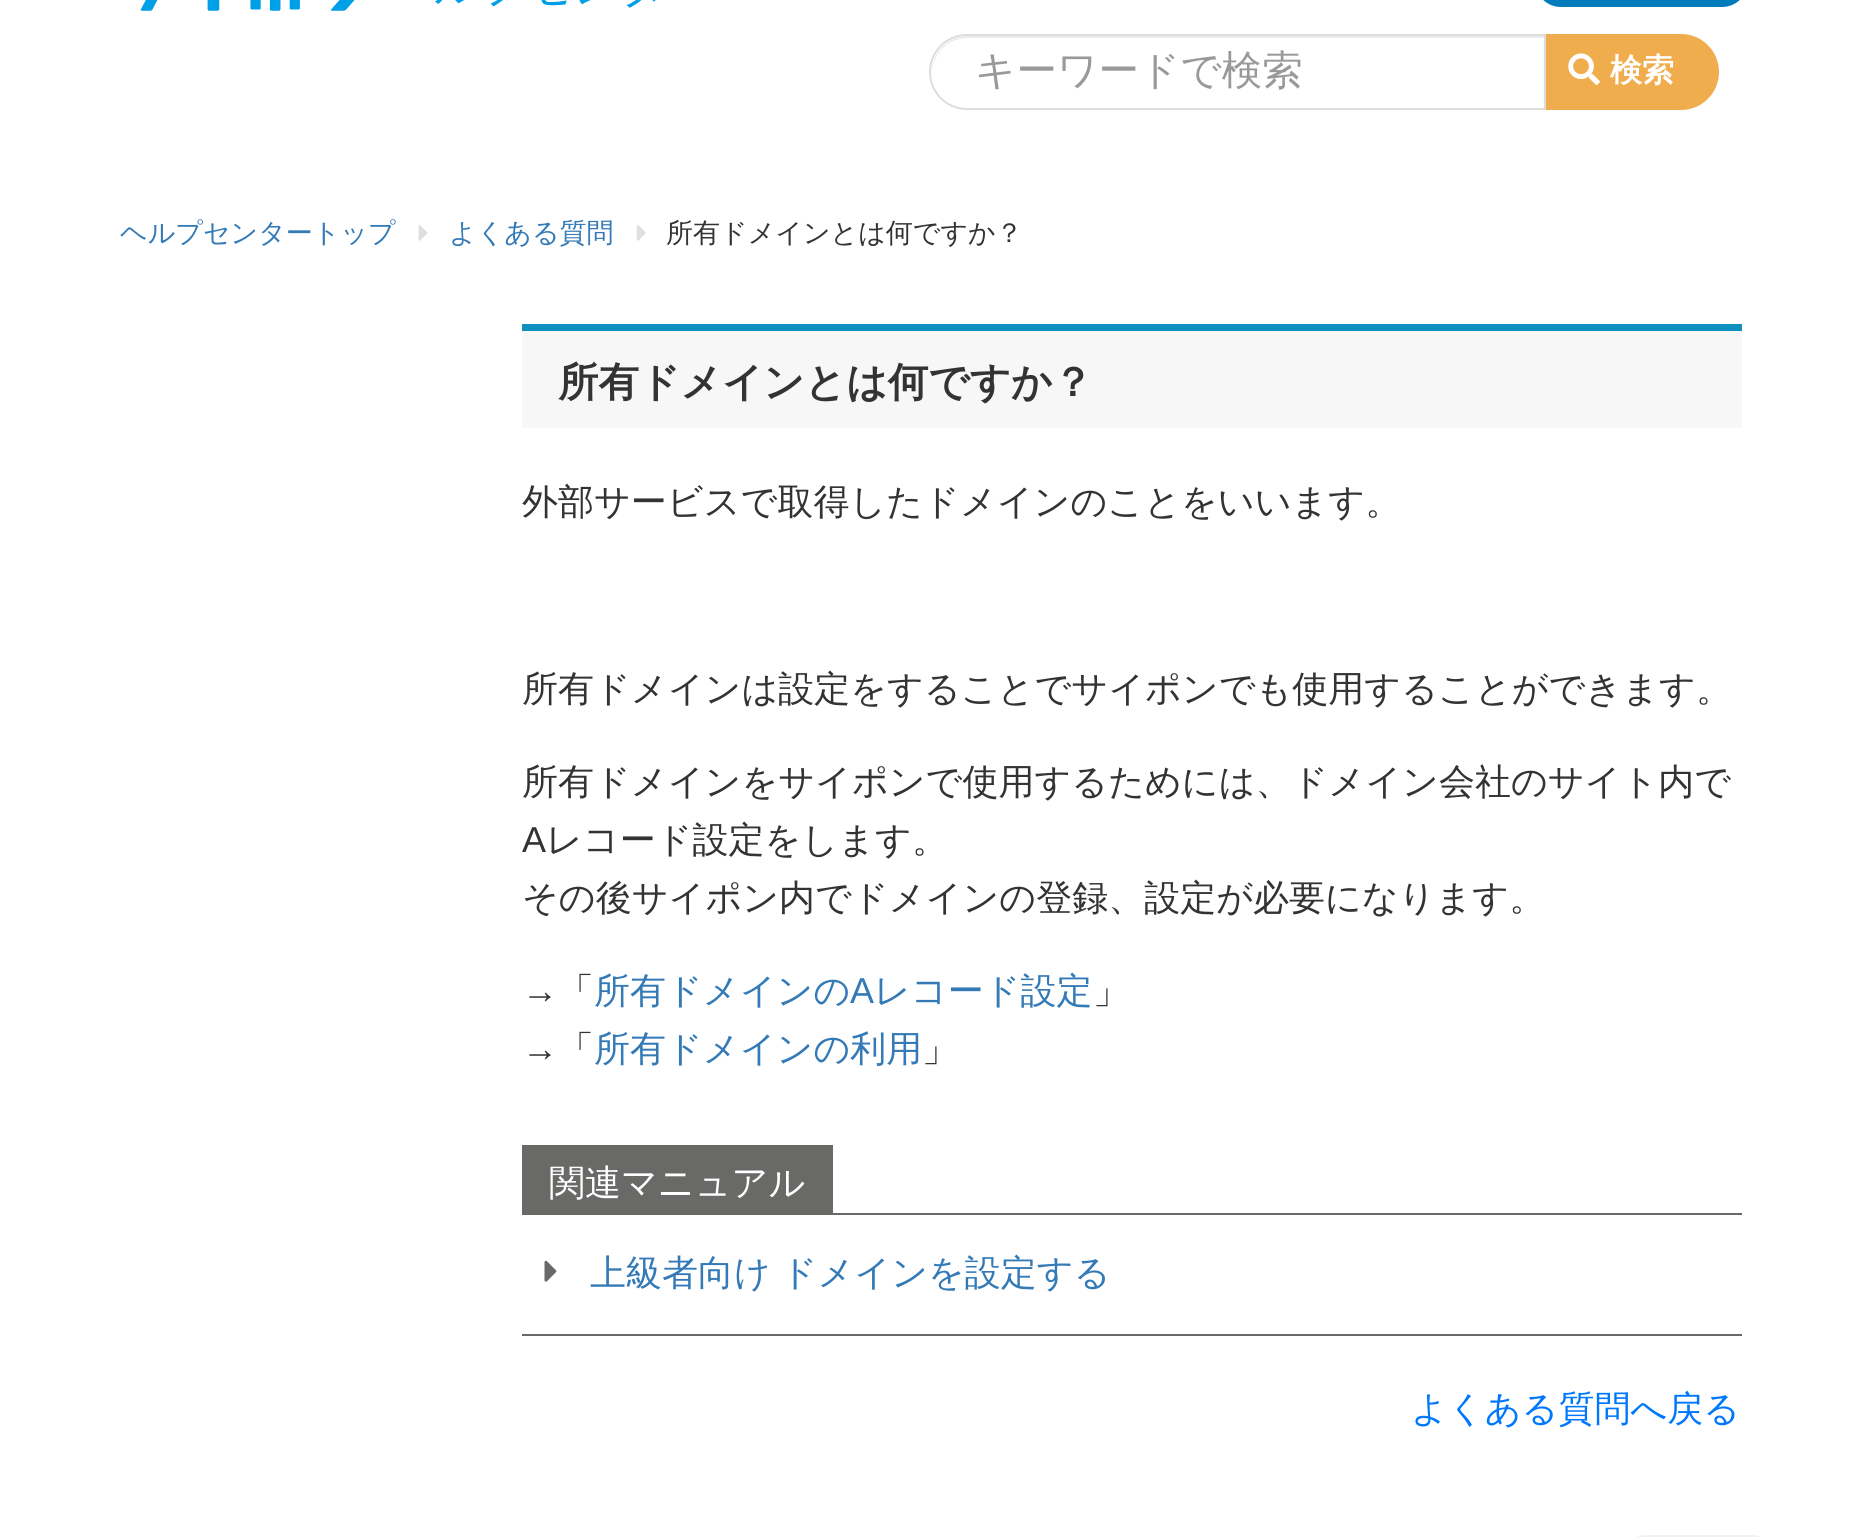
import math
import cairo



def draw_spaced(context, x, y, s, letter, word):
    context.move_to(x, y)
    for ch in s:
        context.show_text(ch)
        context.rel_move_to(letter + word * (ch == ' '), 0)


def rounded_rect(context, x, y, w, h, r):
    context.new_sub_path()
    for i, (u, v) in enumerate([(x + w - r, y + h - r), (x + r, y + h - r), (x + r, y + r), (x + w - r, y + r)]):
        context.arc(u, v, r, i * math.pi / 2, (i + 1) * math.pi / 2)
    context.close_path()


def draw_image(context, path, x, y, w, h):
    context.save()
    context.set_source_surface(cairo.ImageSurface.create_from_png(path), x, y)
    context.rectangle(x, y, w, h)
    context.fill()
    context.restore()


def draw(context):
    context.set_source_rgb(1, 1, 1)
    context.paint()
    draw_image(context, "images/1.png", 140, 0, 516, 11)
    context.set_source_rgb(0, 124 / 255, 186 / 255)
    rounded_rect(context, 1535, -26, 213, 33, 26)
    context.fill()
    context.set_source_rgb(236 / 255, 236 / 255, 236 / 255)
    context.new_path()
    context.move_to(968, 38)
    context.line_to(1544, 38)
    context.line_to(1544, 36)
    context.line_to(968, 36)
    context.curve_to(948, 36, 931, 53, 932, 73)
    context.curve_to(933, 53, 948, 38, 968, 38)
    context.close_path()
    context.fill()
    context.new_path()
    context.move_to(967, 35)
    context.line_to(1545, 35)
    context.line_to(1545, 109)
    context.line_to(967, 109)
    context.curve_to(946.5, 109, 930, 92.5, 930, 72)
    context.curve_to(930, 51.5, 946.5, 35, 967, 35)
    context.close_path()
    context.set_source_rgb(221 / 255, 221 / 255, 221 / 255)
    context.stroke()
    context.set_source_rgb(240 / 255, 173 / 255, 78 / 255)
    context.new_path()
    context.move_to(1546, 34)
    context.line_to(1681, 34)
    context.curve_to(1702, 34, 1719, 51, 1719, 72)
    context.curve_to(1719, 93, 1702, 110, 1681, 110)
    context.line_to(1546, 110)
    context.close_path()
    context.fill()
    draw_image(context, "images/2.png", 1568, 53, 32, 32)
    draw_image(context, "images/3.png", 418, 225, 10, 16)
    draw_image(context, "images/4.png", 636, 225, 10, 16)
    context.set_source_rgb(247 / 255, 247 / 255, 247 / 255)
    context.rectangle(522, 331, 1220, 97)
    context.fill()
    context.set_source_rgb(15 / 255, 144 / 255, 191 / 255)
    context.rectangle(522, 324, 1220, 7)
    context.fill()
    context.set_source_rgb(105 / 255, 105 / 255, 104 / 255)
    context.rectangle(833, 1213, 909, 2)
    context.fill()
    context.rectangle(522, 1334, 1220, 2)
    context.fill()
    context.rectangle(522, 1145, 311, 70)
    context.fill()
    draw_image(context, "images/5.png", 544, 1260, 13, 22)
    context.set_source_rgb(242 / 255, 242 / 255, 242 / 255)
    context.new_path()
    context.move_to(1645, 1535)
    context.line_to(1753, 1535)
    context.curve_to(1763, 1535, 1771, 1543, 1771, 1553)
    context.line_to(1771, 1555)
    context.line_to(1627, 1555)
    context.line_to(1627, 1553)
    context.curve_to(1627, 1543, 1635, 1535, 1645, 1535)
    context.close_path()
    context.fill()
    context.select_font_face("WenQuanYi Zen Hei Medium")
    context.set_font_size(40.5)
    context.set_source_rgb(153 / 255, 153 / 255, 153 / 255)
    context.move_to(975, 84)
    context.show_text("キーワードで検索")
    context.select_font_face("WenQuanYi Zen Hei", cairo.FontSlant.NORMAL, cairo.FontWeight.BOLD)
    context.set_font_size(32)
    context.set_source_rgb(1, 1, 1)
    context.move_to(1610, 81)
    context.show_text("検索")
    context.select_font_face("WenQuanYi Zen Hei Medium")
    context.set_font_size(27)
    context.set_source_rgb(51 / 255, 122 / 255, 183 / 255)
    context.move_to(120, 242)
    context.show_text("ヘルプセンタートップ")
    context.move_to(449, 242)
    context.show_text("よくある質問")
    context.set_source_rgb(51 / 255, 51 / 255, 51 / 255)
    context.move_to(666, 242)
    context.show_text("所有ドメインとは何ですか？")
    context.select_font_face("WenQuanYi Zen Hei", cairo.FontSlant.NORMAL, cairo.FontWeight.BOLD)
    context.set_font_size(40.5)
    context.move_to(558, 396)
    context.show_text("所有ドメインとは何ですか？")
    context.select_font_face("WenQuanYi Zen Hei Medium")
    context.set_font_size(36)
    context.move_to(522, 514)
    context.show_text("外部サービスで取得したドメインのことをいいます。")
    context.move_to(522, 701)
    context.show_text("所有ドメインは設定をすることでサイポンでも使用することができます。")
    context.move_to(522, 794)
    context.show_text("所有ドメインをサイポンで使用するためには、ドメイン会社のサイト内で")
    context.select_font_face("Liberation Sans")
    context.move_to(522, 852)
    context.show_text("A")
    context.select_font_face("WenQuanYi Zen Hei Medium")
    context.move_to(546, 852)
    context.show_text("レコード設定をします。")
    context.move_to(522, 910)
    context.show_text("その後サイポン内でドメインの登録、設定が必要になります。")
    context.select_font_face("Liberation Sans")
    context.move_to(522, 1003)
    context.show_text("→")
    context.select_font_face("WenQuanYi Zen Hei Medium")
    context.move_to(558, 1003)
    context.show_text("「")
    context.set_source_rgb(51 / 255, 122 / 255, 183 / 255)
    context.move_to(594, 1003)
    context.show_text("所有ドメインの")
    context.select_font_face("Liberation Sans")
    context.move_to(850, 1003)
    context.show_text("A")
    context.select_font_face("WenQuanYi Zen Hei Medium")
    context.move_to(874, 1003)
    context.show_text("レコード設定")
    context.set_source_rgb(51 / 255, 51 / 255, 51 / 255)
    context.move_to(1093, 1003)
    context.show_text("」")
    context.select_font_face("Liberation Sans")
    context.move_to(522, 1061)
    context.show_text("→")
    context.select_font_face("WenQuanYi Zen Hei Medium")
    context.move_to(558, 1061)
    context.show_text("「")
    context.set_source_rgb(51 / 255, 122 / 255, 183 / 255)
    context.move_to(594, 1061)
    context.show_text("所有ドメインの利用")
    context.set_source_rgb(51 / 255, 51 / 255, 51 / 255)
    context.move_to(922, 1061)
    context.show_text("」")
    context.set_source_rgb(1, 1, 1)
    context.move_to(549, 1195)
    context.show_text("関連マニュアル")
    context.set_source_rgb(51 / 255, 122 / 255, 183 / 255)
    draw_spaced(context, 590, 1285, "上級者向け ドメインを設定する", 0, -1)
    context.set_source_rgb(0, 120 / 255, 254 / 255)
    context.move_to(1411, 1421)
    context.show_text("よくある質問へ戻る")


surface = cairo.ImageSurface(cairo.Format.RGB24, 1850, 1537)
context = cairo.Context(surface)
options = cairo.FontOptions()
options.set_hint_metrics(cairo.HintMetrics.OFF)
options.set_hint_style(cairo.HintStyle.NONE)
context.set_font_options(options)
context.set_miter_limit(4)
draw(context)
surface.write_to_png("out.png")
